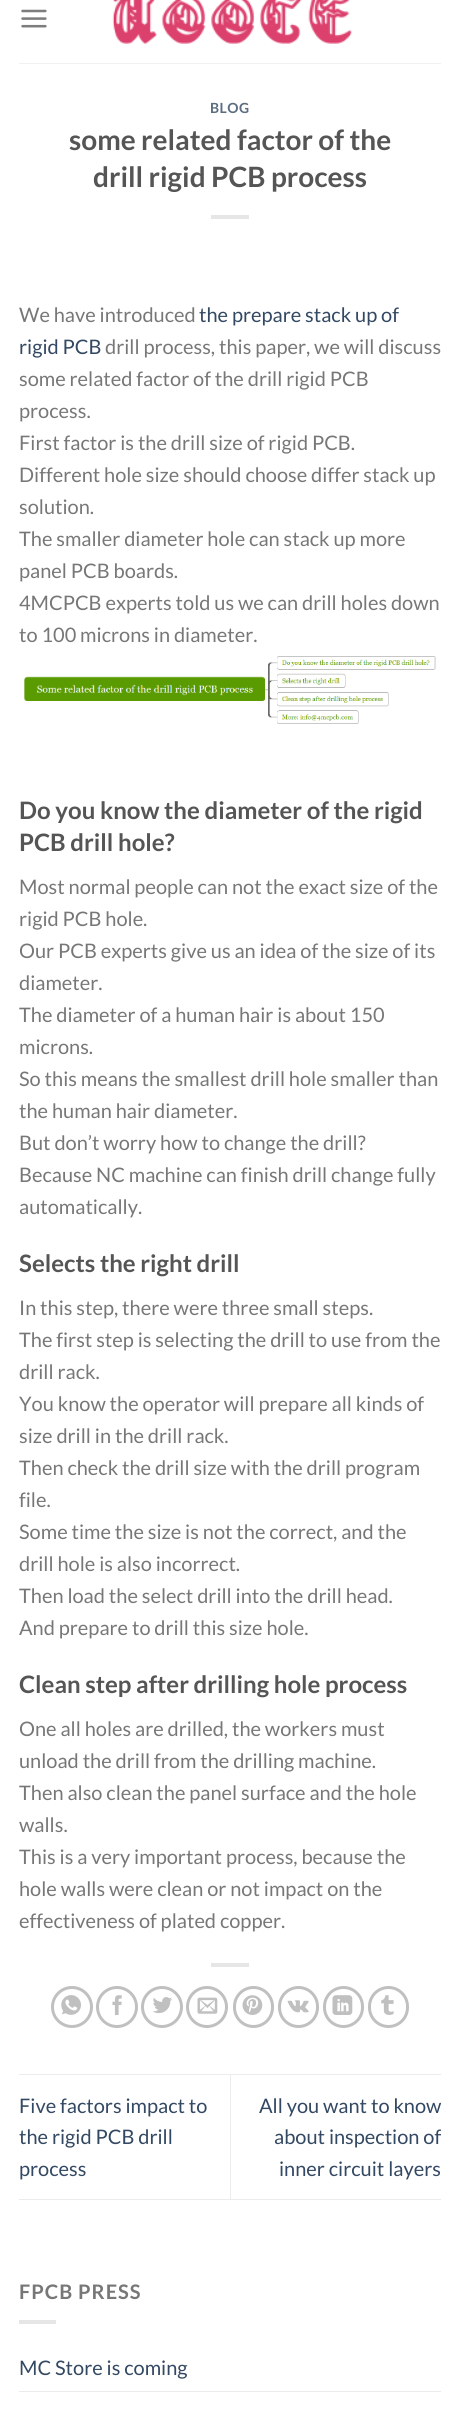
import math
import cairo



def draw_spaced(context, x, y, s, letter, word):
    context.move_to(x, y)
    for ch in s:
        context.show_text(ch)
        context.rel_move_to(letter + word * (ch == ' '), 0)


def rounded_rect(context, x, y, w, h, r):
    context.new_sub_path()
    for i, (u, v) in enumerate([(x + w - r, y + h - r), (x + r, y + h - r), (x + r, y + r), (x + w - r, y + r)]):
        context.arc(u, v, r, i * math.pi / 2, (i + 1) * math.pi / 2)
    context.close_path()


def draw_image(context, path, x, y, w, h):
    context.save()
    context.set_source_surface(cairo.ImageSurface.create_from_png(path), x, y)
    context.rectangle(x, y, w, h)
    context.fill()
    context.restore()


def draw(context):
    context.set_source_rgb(1, 1, 1)
    context.paint()
    draw_image(context, "images/1.png", 21, 9, 26, 19)
    draw_image(context, "images/2.png", 112, 0, 240, 44)
    context.set_source_rgb(241 / 255, 241 / 255, 241 / 255)
    context.rectangle(19, 63, 422, 1)
    context.fill()
    context.set_source_rgb(230 / 255, 230 / 255, 230 / 255)
    context.rectangle(211, 215, 38, 4)
    context.fill()
    draw_image(context, "images/3.png", 24, 656, 412, 68)
    context.rectangle(211, 1963, 38, 4)
    context.fill()
    context.arc(72, 2007, 19.5, 0, 2 * math.pi)
    context.set_source_rgb(192 / 255, 192 / 255, 192 / 255)
    context.set_line_width(3)
    context.stroke()
    draw_image(context, "images/4.png", 61, 1995, 20, 20)
    context.arc(117, 2007, 19.5, 0, 2 * math.pi)
    context.stroke()
    draw_image(context, "images/5.png", 112, 1995, 10, 20)
    context.arc(162, 2007, 19.5, 0, 2 * math.pi)
    context.stroke()
    draw_image(context, "images/6.png", 153, 1997, 19, 17)
    context.arc(207, 2007, 19.5, 0, 2 * math.pi)
    context.stroke()
    draw_image(context, "images/7.png", 197, 1997, 21, 17)
    rounded_rect(context, 234.5, 1987.5, 38, 39, 19)
    context.stroke()
    draw_image(context, "images/8.png", 242, 1995, 21, 20)
    rounded_rect(context, 279.5, 1987.5, 38, 39, 19)
    context.stroke()
    draw_image(context, "images/9.png", 287, 2000, 22, 13)
    rounded_rect(context, 324.5, 1987.5, 38, 39, 19)
    context.stroke()
    draw_image(context, "images/10.png", 332, 1995, 21, 20)
    rounded_rect(context, 369.5, 1987.5, 38, 39, 19)
    context.stroke()
    draw_image(context, "images/11.png", 381, 1995, 13, 20)
    context.set_source_rgb(236 / 255, 236 / 255, 236 / 255)
    context.rectangle(19, 2074, 422, 1)
    context.fill()
    context.rectangle(19, 2199, 422, 1)
    context.fill()
    context.rectangle(230, 2075, 1, 124)
    context.fill()
    context.set_source_rgb(230 / 255, 230 / 255, 230 / 255)
    context.rectangle(19, 2320, 37, 4)
    context.fill()
    context.set_source_rgb(236 / 255, 236 / 255, 236 / 255)
    context.rectangle(19, 2391, 422, 1)
    context.fill()
    context.select_font_face("Lato", cairo.FontSlant.NORMAL, cairo.FontWeight.BOLD)
    context.set_font_size(14)
    context.set_source_rgb(92 / 255, 109 / 255, 129 / 255)
    draw_spaced(context, 210, 113, "BLOG", 0.5, 0)
    context.set_font_size(28)
    context.set_source_rgb(85 / 255, 85 / 255, 85 / 255)
    context.move_to(69, 150)
    context.show_text("some related factor of the")
    context.move_to(93, 187)
    context.show_text("drill rigid PCB process")
    context.select_font_face("Lato")
    context.set_font_size(20)
    context.set_source_rgb(119 / 255, 119 / 255, 119 / 255)
    context.move_to(19, 322)
    context.show_text("We have introduced")
    context.set_source_rgb(51 / 255, 72 / 255, 98 / 255)
    context.move_to(199, 322)
    context.show_text("the prepare stack up of")
    context.move_to(19, 354)
    context.show_text("rigid PCB")
    context.set_source_rgb(119 / 255, 119 / 255, 119 / 255)
    context.move_to(105, 354)
    context.show_text("drill process, this paper, we will discuss")
    context.move_to(19, 386)
    context.show_text("some related factor of the drill rigid PCB")
    context.move_to(19, 418)
    context.show_text("process.")
    context.move_to(19, 450)
    context.show_text("First factor is the drill size of rigid PCB.")
    context.move_to(19, 482)
    context.show_text("Different hole size should choose differ stack up")
    context.move_to(19, 514)
    context.show_text("solution.")
    context.move_to(19, 546)
    context.show_text("The smaller diameter hole can stack up more")
    context.move_to(19, 578)
    context.show_text("panel PCB boards.")
    context.move_to(19, 610)
    context.show_text("4MCPCB experts told us we can drill holes down")
    context.move_to(19, 642)
    context.show_text("to 100 microns in diameter.")
    context.select_font_face("Lato", cairo.FontSlant.NORMAL, cairo.FontWeight.BOLD)
    context.set_font_size(24)
    context.set_source_rgb(85 / 255, 85 / 255, 85 / 255)
    context.move_to(19, 819)
    context.show_text("Do you know the diameter of the rigid")
    context.move_to(19, 851)
    context.show_text("PCB drill hole?")
    context.select_font_face("Lato")
    context.set_font_size(20)
    context.set_source_rgb(119 / 255, 119 / 255, 119 / 255)
    context.move_to(19, 894)
    context.show_text("Most normal people can not the exact size of the")
    context.move_to(19, 926)
    context.show_text("rigid PCB hole.")
    context.move_to(19, 958)
    context.show_text("Our PCB experts give us an idea of the size of its")
    context.move_to(19, 990)
    context.show_text("diameter.")
    context.move_to(19, 1022)
    context.show_text("The diameter of a human hair is about 150")
    context.move_to(19, 1054)
    context.show_text("microns.")
    context.move_to(19, 1086)
    context.show_text("So this means the smallest drill hole smaller than")
    context.move_to(19, 1118)
    context.show_text("the human hair diameter.")
    context.move_to(19, 1150)
    context.show_text("But don’t worry how to change the drill?")
    context.move_to(19, 1182)
    context.show_text("Because NC machine can finish drill change fully")
    context.move_to(19, 1214)
    context.show_text("automatically.")
    context.select_font_face("Lato", cairo.FontSlant.NORMAL, cairo.FontWeight.BOLD)
    context.set_font_size(24)
    context.set_source_rgb(85 / 255, 85 / 255, 85 / 255)
    context.move_to(19, 1272)
    context.show_text("Selects the right drill")
    context.select_font_face("Lato")
    context.set_font_size(20)
    context.set_source_rgb(119 / 255, 119 / 255, 119 / 255)
    context.move_to(19, 1315)
    context.show_text("In this step, there were three small steps.")
    context.move_to(19, 1347)
    context.show_text("The first step is selecting the drill to use from the")
    context.move_to(19, 1379)
    context.show_text("drill rack.")
    context.move_to(19, 1411)
    context.show_text("You know the operator will prepare all kinds of")
    context.move_to(19, 1443)
    context.show_text("size drill in the drill rack.")
    context.move_to(19, 1475)
    context.show_text("Then check the drill size with the drill program")
    context.move_to(19, 1507)
    context.show_text("file.")
    context.move_to(19, 1539)
    context.show_text("Some time the size is not the correct, and the")
    context.move_to(19, 1571)
    context.show_text("drill hole is also incorrect.")
    context.move_to(19, 1603)
    context.show_text("Then load the select drill into the drill head.")
    context.move_to(19, 1635)
    context.show_text("And prepare to drill this size hole.")
    context.select_font_face("Lato", cairo.FontSlant.NORMAL, cairo.FontWeight.BOLD)
    context.set_font_size(24)
    context.set_source_rgb(85 / 255, 85 / 255, 85 / 255)
    context.move_to(19, 1693)
    context.show_text("Clean step after drilling hole process")
    context.select_font_face("Lato")
    context.set_font_size(20)
    context.set_source_rgb(119 / 255, 119 / 255, 119 / 255)
    context.move_to(19, 1736)
    context.show_text("One all holes are drilled, the workers must")
    context.move_to(19, 1768)
    context.show_text("unload the drill from the drilling machine.")
    context.move_to(19, 1800)
    context.show_text("Then also clean the panel surface and the hole")
    context.move_to(19, 1832)
    context.show_text("walls.")
    context.move_to(19, 1864)
    context.show_text("This is a very important process, because the")
    context.move_to(19, 1896)
    context.show_text("hole walls were clean or not impact on the")
    context.move_to(19, 1928)
    context.show_text("effectiveness of plated copper.")
    context.set_source_rgb(51 / 255, 72 / 255, 98 / 255)
    context.move_to(19, 2113)
    context.show_text("Five factors impact to")
    context.move_to(19, 2144)
    context.show_text("the rigid PCB drill")
    context.move_to(19, 2176)
    context.show_text("process")
    context.move_to(259, 2113)
    context.show_text("All you want to know")
    context.move_to(274, 2144)
    context.show_text("about inspection of")
    context.move_to(279, 2176)
    context.show_text("inner circuit layers")
    context.select_font_face("Lato", cairo.FontSlant.NORMAL, cairo.FontWeight.BOLD)
    context.set_source_rgb(119 / 255, 119 / 255, 119 / 255)
    draw_spaced(context, 19, 2299, "FPCB PRESS", 1, 0)
    context.select_font_face("Lato")
    context.set_source_rgb(51 / 255, 72 / 255, 98 / 255)
    context.move_to(19, 2375)
    context.show_text("MC Store is coming")


surface = cairo.ImageSurface(cairo.Format.RGB24, 460, 2410)
context = cairo.Context(surface)
options = cairo.FontOptions()
options.set_hint_metrics(cairo.HintMetrics.OFF)
options.set_hint_style(cairo.HintStyle.NONE)
context.set_font_options(options)
context.set_miter_limit(4)
draw(context)
surface.write_to_png("out.png")
